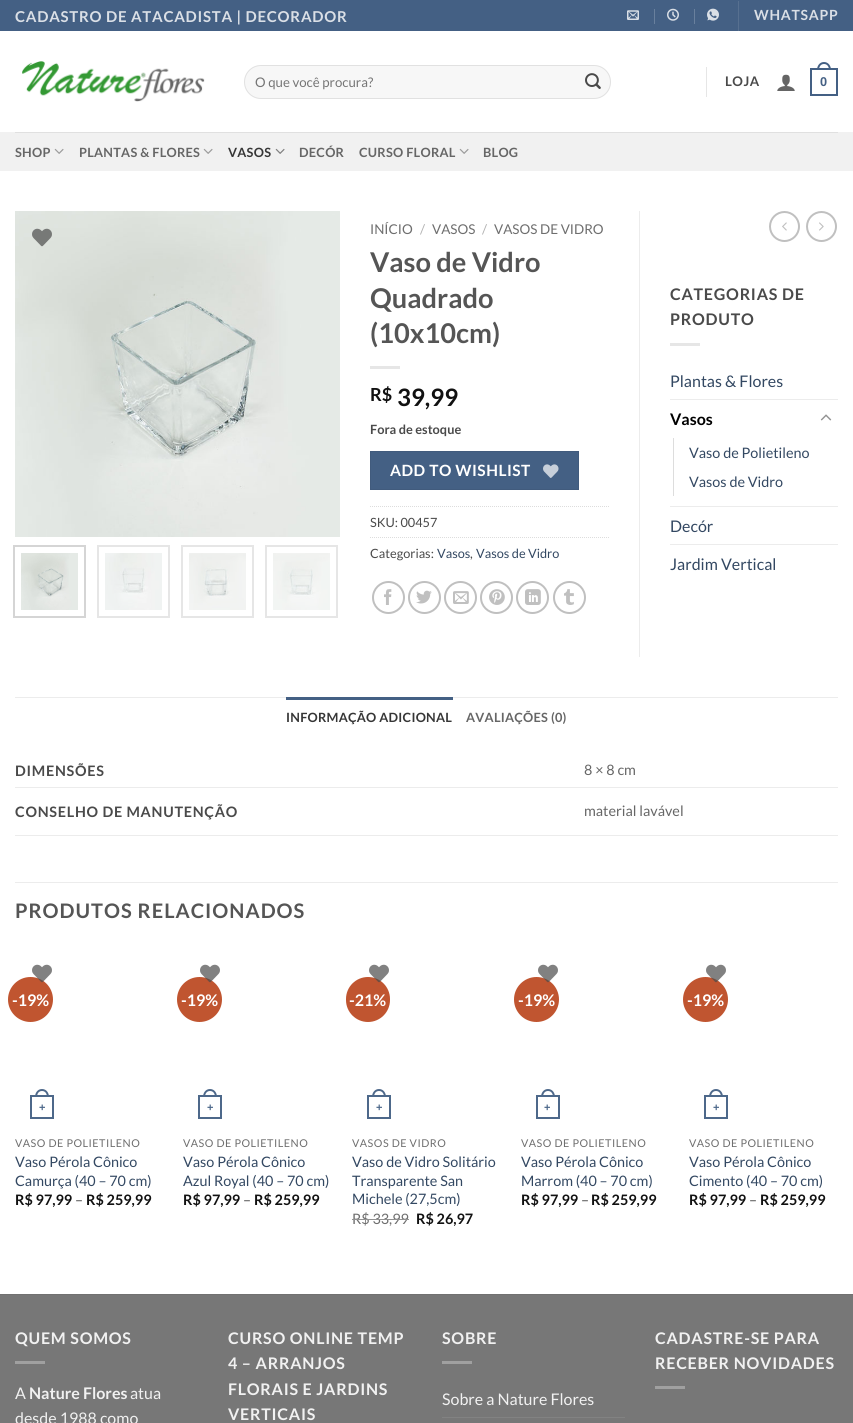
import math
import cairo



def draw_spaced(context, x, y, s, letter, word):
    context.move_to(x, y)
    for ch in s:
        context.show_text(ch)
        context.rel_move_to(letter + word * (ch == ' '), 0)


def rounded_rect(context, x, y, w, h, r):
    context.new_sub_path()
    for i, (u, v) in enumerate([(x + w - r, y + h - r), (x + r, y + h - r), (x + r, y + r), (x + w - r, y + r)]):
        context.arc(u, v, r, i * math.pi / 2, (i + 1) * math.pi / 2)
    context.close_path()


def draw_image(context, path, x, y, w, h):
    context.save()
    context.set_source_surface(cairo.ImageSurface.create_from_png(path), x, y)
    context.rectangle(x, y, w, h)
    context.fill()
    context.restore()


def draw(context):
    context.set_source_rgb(1, 1, 1)
    context.paint()
    context.set_source_rgb(68 / 255, 96 / 255, 132 / 255)
    context.rectangle(0, 0, 853, 31)
    context.fill()
    draw_image(context, "images/1.png", 627, 10, 12, 10)
    context.set_source_rgb(105 / 255, 128 / 255, 157 / 255)
    context.rectangle(654, 9, 1, 15)
    context.fill()
    draw_image(context, "images/2.png", 667, 8, 12, 13)
    context.rectangle(694, 9, 1, 15)
    context.fill()
    draw_image(context, "images/3.png", 707, 8, 12, 13)
    context.set_source_rgb(87 / 255, 112 / 255, 144 / 255)
    context.rectangle(738, 1, 1, 30)
    context.fill()
    draw_image(context, "images/4.png", 22, 61, 183, 41)
    context.set_source_rgb(247 / 255, 247 / 255, 247 / 255)
    rounded_rect(context, 244, 65, 367, 34, 17)
    context.fill()
    rounded_rect(context, 244.5, 65.5, 366, 33, 16.5)
    context.set_source_rgba(0, 0, 0, 0.09)
    context.set_line_width(1)
    context.stroke()
    draw_image(context, "images/5.png", 585, 73, 16, 16)
    context.set_source_rgb(230 / 255, 230 / 255, 230 / 255)
    context.rectangle(706, 67, 1, 30)
    context.fill()
    draw_image(context, "images/6.png", 777, 74, 18, 17)
    context.rectangle(811, 69, 26, 26)
    context.set_source_rgb(68 / 255, 96 / 255, 132 / 255)
    context.set_line_width(2)
    context.stroke()
    context.set_fill_rule(cairo.FillRule.EVEN_ODD)
    context.new_path()
    context.move_to(824, 62)
    context.curve_to(828.5, 62, 831, 66, 831, 70)
    context.line_to(817, 70)
    context.curve_to(817, 66, 819.5, 62, 824, 62)
    context.close_path()
    context.move_to(824, 64)
    context.curve_to(827.5, 64, 829, 67, 829, 70)
    context.line_to(819, 70)
    context.curve_to(819, 67, 820.5, 64, 824, 64)
    context.close_path()
    context.fill()
    context.set_source_rgb(241 / 255, 241 / 255, 241 / 255)
    context.rectangle(0, 132, 853, 39)
    context.fill()
    context.set_source_rgb(224 / 255, 224 / 255, 224 / 255)
    context.rectangle(15, 132, 823, 1)
    context.fill()
    draw_image(context, "images/7.png", 54, 148, 10, 6)
    draw_image(context, "images/7.png", 203, 148, 10, 6)
    draw_image(context, "images/8.png", 275, 148, 10, 6)
    draw_image(context, "images/7.png", 459, 148, 10, 6)
    draw_image(context, "images/9.png", 15, 211, 325, 326)
    draw_image(context, "images/10.png", 32, 228, 20, 19)
    draw_image(context, "images/11.png", 21, 553, 57, 57)
    context.rectangle(14, 546, 71, 71)
    context.set_source_rgb(213 / 255, 213 / 255, 213 / 255)
    context.stroke()
    draw_image(context, "images/12.png", 105, 553, 57, 57)
    context.rectangle(98, 546, 71, 71)
    context.set_source_rgb(230 / 255, 230 / 255, 230 / 255)
    context.stroke()
    draw_image(context, "images/13.png", 189, 553, 57, 57)
    context.rectangle(182, 546, 71, 71)
    context.stroke()
    draw_image(context, "images/14.png", 273, 553, 57, 57)
    context.rectangle(266, 546, 71, 71)
    context.stroke()
    context.set_source_rgb(236 / 255, 236 / 255, 236 / 255)
    context.rectangle(639, 211, 1, 446)
    context.fill()
    context.set_source_rgb(230 / 255, 230 / 255, 230 / 255)
    context.rectangle(370, 366, 30, 3)
    context.fill()
    context.set_source_rgb(68 / 255, 96 / 255, 132 / 255)
    context.rectangle(370.5, 451.5, 208, 38)
    context.fill_preserve()
    context.set_source_rgb(65 / 255, 91 / 255, 125 / 255)
    context.set_line_width(1)
    context.stroke()
    draw_image(context, "images/15.png", 543, 464, 16, 14)
    context.new_path()
    context.move_to(370, 506.5)
    context.line_to(609, 506.5)
    context.set_source_rgb(221 / 255, 221 / 255, 221 / 255)
    context.set_dash([1, 1])
    context.stroke()
    context.new_path()
    context.move_to(370, 537.5)
    context.line_to(609, 537.5)
    context.stroke()
    context.arc(388.5, 597.5, 15.5, 0, 2 * math.pi)
    context.set_source_rgb(192 / 255, 192 / 255, 192 / 255)
    context.set_line_width(2)
    context.set_dash([])
    context.stroke()
    draw_image(context, "images/16.png", 384, 589, 8, 16)
    context.arc(424.5, 597.5, 15.5, 0, 2 * math.pi)
    context.stroke()
    draw_image(context, "images/17.png", 416, 590, 16, 14)
    context.arc(460.5, 597.5, 15.5, 0, 2 * math.pi)
    context.stroke()
    draw_image(context, "images/18.png", 453, 591, 16, 13)
    context.arc(496.5, 597.5, 15.5, 0, 2 * math.pi)
    context.stroke()
    draw_image(context, "images/19.png", 489, 589, 16, 16)
    context.arc(532.5, 597.5, 15.5, 0, 2 * math.pi)
    context.stroke()
    draw_image(context, "images/20.png", 525, 589, 16, 16)
    context.arc(569.5, 597.5, 15.5, 0, 2 * math.pi)
    context.stroke()
    draw_image(context, "images/21.png", 564, 589, 10, 16)
    context.arc(784.5, 226.5, 14.5, 0, 2 * math.pi)
    context.stroke()
    draw_image(context, "images/22.png", 782, 222, 5, 9)
    context.arc(821.5, 226.5, 14.5, 0, 2 * math.pi)
    context.stroke()
    draw_image(context, "images/23.png", 819, 222, 5, 9)
    context.set_source_rgb(230 / 255, 230 / 255, 230 / 255)
    context.rectangle(670, 343, 30, 3)
    context.fill()
    context.set_source_rgb(236 / 255, 236 / 255, 236 / 255)
    context.rectangle(670, 399, 168, 1)
    context.fill()
    draw_image(context, "images/24.png", 820, 414, 12, 7)
    context.set_source_rgb(221 / 255, 221 / 255, 221 / 255)
    context.rectangle(673, 438, 1, 58)
    context.fill()
    context.set_source_rgb(236 / 255, 236 / 255, 236 / 255)
    context.rectangle(670, 506, 168, 1)
    context.fill()
    context.rectangle(670, 544, 168, 1)
    context.fill()
    context.rectangle(15, 697, 823, 1)
    context.fill()
    context.set_source_rgb(68 / 255, 96 / 255, 132 / 255)
    context.rectangle(286, 697, 167, 3)
    context.fill()
    context.set_source_rgb(236 / 255, 236 / 255, 236 / 255)
    context.rectangle(15, 787, 823, 1)
    context.fill()
    context.rectangle(15, 835, 823, 1)
    context.fill()
    context.rectangle(15, 882, 823, 1)
    context.fill()
    context.set_source_rgb(192 / 255, 85 / 255, 48 / 255)
    context.arc(30.5, 999.5, 22.5, 0, 2 * math.pi)
    context.fill()
    draw_image(context, "images/25.png", 32, 964, 20, 19)
    context.rectangle(31, 1096, 22, 22)
    context.set_source_rgb(77 / 255, 104 / 255, 138 / 255)
    context.stroke()
    context.new_path()
    context.move_to(42, 1089)
    context.curve_to(46.5, 1089, 49, 1093, 49, 1097)
    context.line_to(35, 1097)
    context.curve_to(35, 1093, 37.5, 1089, 42, 1089)
    context.close_path()
    context.move_to(42, 1091)
    context.curve_to(45.5, 1091, 47, 1094, 47, 1097)
    context.line_to(37, 1097)
    context.curve_to(37, 1094, 38.5, 1091, 42, 1091)
    context.close_path()
    context.fill()
    context.set_source_rgb(192 / 255, 85 / 255, 48 / 255)
    context.arc(199.5, 999.5, 22.5, 0, 2 * math.pi)
    context.fill()
    draw_image(context, "images/26.png", 200, 964, 20, 19)
    context.rectangle(199, 1096, 22, 22)
    context.set_source_rgb(77 / 255, 104 / 255, 138 / 255)
    context.stroke()
    context.new_path()
    context.move_to(210, 1089)
    context.curve_to(214.5, 1089, 217, 1093, 217, 1097)
    context.line_to(203, 1097)
    context.curve_to(203, 1093, 205.5, 1089, 210, 1089)
    context.close_path()
    context.move_to(210, 1091)
    context.curve_to(213.5, 1091, 215, 1094, 215, 1097)
    context.line_to(205, 1097)
    context.curve_to(205, 1094, 206.5, 1091, 210, 1091)
    context.close_path()
    context.fill()
    context.set_source_rgb(192 / 255, 85 / 255, 48 / 255)
    rounded_rect(context, 346, 977, 44, 45, 22)
    context.fill()
    draw_image(context, "images/27.png", 369, 964, 20, 19)
    context.rectangle(368, 1096, 22, 22)
    context.set_source_rgb(77 / 255, 104 / 255, 138 / 255)
    context.stroke()
    context.new_path()
    context.move_to(379, 1089)
    context.curve_to(383.5, 1089, 386, 1093, 386, 1097)
    context.line_to(372, 1097)
    context.curve_to(372, 1093, 374.5, 1089, 379, 1089)
    context.close_path()
    context.move_to(379, 1091)
    context.curve_to(382.5, 1091, 384, 1094, 384, 1097)
    context.line_to(374, 1097)
    context.curve_to(374, 1094, 375.5, 1091, 379, 1091)
    context.close_path()
    context.fill()
    context.set_source_rgb(192 / 255, 85 / 255, 48 / 255)
    context.arc(536.5, 999.5, 22.5, 0, 2 * math.pi)
    context.fill()
    draw_image(context, "images/25.png", 538, 964, 20, 19)
    context.rectangle(537, 1096, 22, 22)
    context.set_source_rgb(77 / 255, 104 / 255, 138 / 255)
    context.stroke()
    context.new_path()
    context.move_to(548, 1089)
    context.curve_to(552.5, 1089, 555, 1093, 555, 1097)
    context.line_to(541, 1097)
    context.curve_to(541, 1093, 543.5, 1089, 548, 1089)
    context.close_path()
    context.move_to(548, 1091)
    context.curve_to(551.5, 1091, 553, 1094, 553, 1097)
    context.line_to(543, 1097)
    context.curve_to(543, 1094, 544.5, 1091, 548, 1091)
    context.close_path()
    context.fill()
    context.set_source_rgb(192 / 255, 85 / 255, 48 / 255)
    context.arc(705.5, 999.5, 22.5, 0, 2 * math.pi)
    context.fill()
    draw_image(context, "images/26.png", 706, 964, 20, 19)
    context.rectangle(705, 1096, 22, 22)
    context.set_source_rgb(77 / 255, 104 / 255, 138 / 255)
    context.stroke()
    context.new_path()
    context.move_to(716, 1089)
    context.curve_to(720.5, 1089, 723, 1093, 723, 1097)
    context.line_to(709, 1097)
    context.curve_to(709, 1093, 711.5, 1089, 716, 1089)
    context.close_path()
    context.move_to(716, 1091)
    context.curve_to(719.5, 1091, 721, 1094, 721, 1097)
    context.line_to(711, 1097)
    context.curve_to(711, 1094, 712.5, 1091, 716, 1091)
    context.close_path()
    context.fill()
    context.set_source_rgb(119 / 255, 119 / 255, 119 / 255)
    context.rectangle(0, 1295, 853, 128)
    context.fill()
    context.set_source_rgb(113 / 255, 113 / 255, 113 / 255)
    context.rectangle(0, 1294, 853, 1)
    context.fill()
    context.set_source_rgb(160 / 255, 160 / 255, 160 / 255)
    context.rectangle(15, 1361, 30, 3)
    context.fill()
    context.rectangle(442, 1361, 30, 3)
    context.fill()
    context.set_source_rgb(130 / 255, 130 / 255, 130 / 255)
    context.rectangle(442, 1417, 183, 1)
    context.fill()
    context.set_source_rgb(160 / 255, 160 / 255, 160 / 255)
    context.rectangle(655, 1386, 30, 3)
    context.fill()
    context.select_font_face("Lato", cairo.FontSlant.NORMAL, cairo.FontWeight.BOLD)
    context.set_font_size(15)
    context.set_source_rgb(218 / 255, 223 / 255, 230 / 255)
    draw_spaced(context, 15, 22, "CADASTRO DE ATACADISTA | DECORADOR", 0.75, 0)
    context.set_font_size(14)
    draw_spaced(context, 754, 20, "WHATSAPP", 0.75, 0)
    context.select_font_face("Lato")
    context.set_font_size(13.25)
    context.set_source_rgb(117 / 255, 117 / 255, 117 / 255)
    context.move_to(255, 87)
    context.show_text("O que você procura?")
    context.select_font_face("Lato", cairo.FontSlant.NORMAL, cairo.FontWeight.BOLD)
    context.set_source_rgb(74 / 255, 74 / 255, 74 / 255)
    draw_spaced(context, 725, 86, "LOJA", 0.5, 0)
    context.select_font_face("Liberation Sans", cairo.FontSlant.NORMAL, cairo.FontWeight.BOLD)
    context.set_font_size(12.75)
    context.set_source_rgb(68 / 255, 96 / 255, 132 / 255)
    draw_spaced(context, 820, 86, "0", 0.25, 0)
    context.select_font_face("Lato", cairo.FontSlant.NORMAL, cairo.FontWeight.BOLD)
    context.set_source_rgb(102 / 255, 102 / 255, 102 / 255)
    draw_spaced(context, 15, 157, "SHOP", 0.25, 0)
    draw_spaced(context, 79, 157, "PLANTAS & FLORES", 0.25, 0)
    context.set_source_rgb(54 / 255, 54 / 255, 54 / 255)
    draw_spaced(context, 228, 157, "VASOS", 0.25, 0)
    context.set_source_rgb(102 / 255, 102 / 255, 102 / 255)
    draw_spaced(context, 299, 157, "DECÓR", 0.25, 0)
    draw_spaced(context, 359, 157, "CURSO FLORAL", 0.25, 0)
    draw_spaced(context, 483, 157, "BLOG", 0.25, 0)
    context.select_font_face("Lato")
    context.set_font_size(13.5)
    context.set_source_rgb(110 / 255, 110 / 255, 110 / 255)
    context.move_to(370, 234)
    context.show_text("INÍCIO")
    context.set_source_rgb(178 / 255, 178 / 255, 178 / 255)
    context.move_to(420, 234)
    context.show_text("/")
    context.set_source_rgb(110 / 255, 110 / 255, 110 / 255)
    context.move_to(432, 234)
    context.show_text("VASOS")
    context.set_source_rgb(178 / 255, 178 / 255, 178 / 255)
    context.move_to(482, 234)
    context.show_text("/")
    context.set_source_rgb(110 / 255, 110 / 255, 110 / 255)
    context.move_to(494, 234)
    context.show_text("VASOS DE VIDRO")
    context.select_font_face("Lato", cairo.FontSlant.NORMAL, cairo.FontWeight.BOLD)
    context.set_font_size(27.25)
    context.set_source_rgb(85 / 255, 85 / 255, 85 / 255)
    context.move_to(370, 272)
    context.show_text("Vaso de Vidro")
    context.move_to(370, 308)
    context.show_text("Quadrado")
    context.move_to(370, 343)
    context.show_text("(10x10cm)")
    context.set_font_size(18)
    context.set_source_rgb(17 / 255, 17 / 255, 17 / 255)
    context.move_to(370, 401)
    context.show_text("R$")
    context.set_font_size(24)
    context.move_to(397, 406)
    context.show_text("39,99")
    context.set_font_size(12.75)
    context.set_source_rgb(74 / 255, 74 / 255, 74 / 255)
    context.move_to(370, 434)
    context.show_text("Fora de estoque")
    context.set_font_size(15.5)
    context.set_source_rgb(1, 1, 1)
    draw_spaced(context, 390, 476, "ADD TO WISHLIST", 0.5, 0)
    context.select_font_face("Lato")
    context.set_font_size(12.75)
    context.set_source_rgb(74 / 255, 74 / 255, 74 / 255)
    context.move_to(370, 527)
    context.show_text("SKU: 00457")
    context.move_to(370, 558)
    context.show_text("Categorias:")
    context.set_source_rgb(51 / 255, 72 / 255, 98 / 255)
    context.move_to(437, 558)
    context.show_text("Vasos")
    context.set_source_rgb(74 / 255, 74 / 255, 74 / 255)
    context.move_to(470, 558)
    context.show_text(",")
    context.set_source_rgb(51 / 255, 72 / 255, 98 / 255)
    context.move_to(476, 558)
    context.show_text("Vasos de Vidro")
    context.select_font_face("Lato", cairo.FontSlant.NORMAL, cairo.FontWeight.BOLD)
    context.set_font_size(16)
    context.set_source_rgb(74 / 255, 74 / 255, 74 / 255)
    draw_spaced(context, 670, 300, "CATEGORIAS DE", 0.75, 0)
    draw_spaced(context, 670, 325, "PRODUTO", 0.75, 0)
    context.select_font_face("Lato")
    context.set_source_rgb(51 / 255, 72 / 255, 98 / 255)
    context.move_to(670, 387)
    context.show_text("Plantas & Flores")
    context.select_font_face("Lato", cairo.FontSlant.NORMAL, cairo.FontWeight.BOLD)
    context.set_source_rgb(0, 0, 0)
    context.move_to(670, 425)
    context.show_text("Vasos")
    context.select_font_face("Lato")
    context.set_font_size(14.4)
    context.set_source_rgb(51 / 255, 72 / 255, 98 / 255)
    context.move_to(689, 458)
    context.show_text("Vaso de Polietileno")
    context.move_to(689, 487)
    context.show_text("Vasos de Vidro")
    context.set_font_size(16)
    context.move_to(670, 532)
    context.show_text("Decór")
    context.move_to(670, 570)
    context.show_text("Jardim Vertical")
    context.select_font_face("Lato", cairo.FontSlant.NORMAL, cairo.FontWeight.BOLD)
    context.set_font_size(12.75)
    context.set_source_rgb(54 / 255, 54 / 255, 54 / 255)
    draw_spaced(context, 286, 722, "INFORMAÇÃO ADICIONAL", 0.25, 0)
    context.set_source_rgb(102 / 255, 102 / 255, 102 / 255)
    draw_spaced(context, 466, 722, "AVALIAÇÕES (0)", 0.25, 0)
    context.set_font_size(14.4)
    context.set_source_rgb(74 / 255, 74 / 255, 74 / 255)
    draw_spaced(context, 15, 776, "DIMENSÕES", 0.75, 0)
    context.select_font_face("Lato")
    context.set_source_rgb(102 / 255, 102 / 255, 102 / 255)
    context.move_to(584, 775)
    context.show_text("8 × 8 cm")
    context.select_font_face("Lato", cairo.FontSlant.NORMAL, cairo.FontWeight.BOLD)
    context.set_source_rgb(74 / 255, 74 / 255, 74 / 255)
    draw_spaced(context, 15, 817, "CONSELHO DE MANUTENÇÃO", 0.75, 0)
    context.select_font_face("Lato")
    context.set_source_rgb(102 / 255, 102 / 255, 102 / 255)
    context.move_to(584, 816)
    context.show_text("material lavável")
    context.select_font_face("Lato", cairo.FontSlant.NORMAL, cairo.FontWeight.BOLD)
    context.set_font_size(20)
    context.set_source_rgb(85 / 255, 85 / 255, 85 / 255)
    draw_spaced(context, 15, 918, "PRODUTOS RELACIONADOS", 1, 0)
    context.set_font_size(16)
    context.set_source_rgb(1, 1, 1)
    context.move_to(12, 1006)
    context.show_text("-19%")
    context.select_font_face("Liberation Sans", cairo.FontSlant.NORMAL, cairo.FontWeight.BOLD)
    context.set_font_size(11)
    context.set_source_rgb(77 / 255, 104 / 255, 138 / 255)
    context.move_to(39, 1111)
    context.show_text("+")
    context.select_font_face("Lato")
    context.set_font_size(10.75)
    context.set_source_rgb(110 / 255, 110 / 255, 110 / 255)
    draw_spaced(context, 15, 1147, "VASO DE POLIETILENO", 0.5, 0)
    context.set_font_size(14.4)
    context.set_source_rgb(51 / 255, 72 / 255, 98 / 255)
    context.move_to(15, 1167)
    context.show_text("Vaso Pérola Cônico")
    context.move_to(15, 1186)
    context.show_text("Camurça (40 – 70 cm)")
    context.select_font_face("Lato", cairo.FontSlant.NORMAL, cairo.FontWeight.BOLD)
    context.set_source_rgb(17 / 255, 17 / 255, 17 / 255)
    context.move_to(15, 1205)
    context.show_text("R$ 97,99")
    context.select_font_face("Lato")
    context.set_source_rgb(74 / 255, 74 / 255, 74 / 255)
    context.move_to(75, 1205)
    context.show_text("–")
    context.select_font_face("Lato", cairo.FontSlant.NORMAL, cairo.FontWeight.BOLD)
    context.set_source_rgb(17 / 255, 17 / 255, 17 / 255)
    context.move_to(86, 1205)
    context.show_text("R$ 259,99")
    context.set_font_size(16)
    context.set_source_rgb(1, 1, 1)
    context.move_to(181, 1006)
    context.show_text("-19%")
    context.select_font_face("Liberation Sans", cairo.FontSlant.NORMAL, cairo.FontWeight.BOLD)
    context.set_font_size(11)
    context.set_source_rgb(77 / 255, 104 / 255, 138 / 255)
    context.move_to(207, 1111)
    context.show_text("+")
    context.select_font_face("Lato")
    context.set_font_size(10.75)
    context.set_source_rgb(110 / 255, 110 / 255, 110 / 255)
    draw_spaced(context, 183, 1147, "VASO DE POLIETILENO", 0.5, 0)
    context.set_font_size(14.4)
    context.set_source_rgb(51 / 255, 72 / 255, 98 / 255)
    context.move_to(183, 1167)
    context.show_text("Vaso Pérola Cônico")
    context.move_to(183, 1186)
    context.show_text("Azul Royal (40 – 70 cm)")
    context.select_font_face("Lato", cairo.FontSlant.NORMAL, cairo.FontWeight.BOLD)
    context.set_source_rgb(17 / 255, 17 / 255, 17 / 255)
    context.move_to(183, 1205)
    context.show_text("R$ 97,99")
    context.select_font_face("Lato")
    context.set_source_rgb(74 / 255, 74 / 255, 74 / 255)
    context.move_to(243, 1205)
    context.show_text("–")
    context.select_font_face("Lato", cairo.FontSlant.NORMAL, cairo.FontWeight.BOLD)
    context.set_source_rgb(17 / 255, 17 / 255, 17 / 255)
    context.move_to(254, 1205)
    context.show_text("R$ 259,99")
    context.set_font_size(16)
    context.set_source_rgb(1, 1, 1)
    context.move_to(349, 1006)
    context.show_text("-21%")
    context.select_font_face("Liberation Sans", cairo.FontSlant.NORMAL, cairo.FontWeight.BOLD)
    context.set_font_size(11)
    context.set_source_rgb(77 / 255, 104 / 255, 138 / 255)
    context.move_to(376, 1111)
    context.show_text("+")
    context.select_font_face("Lato")
    context.set_font_size(10.75)
    context.set_source_rgb(110 / 255, 110 / 255, 110 / 255)
    draw_spaced(context, 352, 1147, "VASOS DE VIDRO", 0.5, 0)
    context.set_font_size(14.4)
    context.set_source_rgb(51 / 255, 72 / 255, 98 / 255)
    context.move_to(352, 1167)
    context.show_text("Vaso de Vidro Solitário")
    context.move_to(352, 1186)
    context.show_text("Transparente San")
    context.move_to(352, 1204)
    context.show_text("Michele (27,5cm)")
    context.set_source_rgb(110 / 255, 110 / 255, 110 / 255)
    context.move_to(352, 1224)
    context.show_text("R$ 33,99")
    context.set_source_rgb(146 / 255, 146 / 255, 146 / 255)
    context.rectangle(352, 1219, 57, 1)
    context.fill()
    context.select_font_face("Lato", cairo.FontSlant.NORMAL, cairo.FontWeight.BOLD)
    context.set_source_rgb(17 / 255, 17 / 255, 17 / 255)
    context.move_to(416, 1224)
    context.show_text("R$ 26,97")
    context.set_font_size(16)
    context.set_source_rgb(1, 1, 1)
    context.move_to(518, 1006)
    context.show_text("-19%")
    context.select_font_face("Liberation Sans", cairo.FontSlant.NORMAL, cairo.FontWeight.BOLD)
    context.set_font_size(11)
    context.set_source_rgb(77 / 255, 104 / 255, 138 / 255)
    context.move_to(544, 1111)
    context.show_text("+")
    context.select_font_face("Lato")
    context.set_font_size(10.75)
    context.set_source_rgb(110 / 255, 110 / 255, 110 / 255)
    draw_spaced(context, 521, 1147, "VASO DE POLIETILENO", 0.5, 0)
    context.set_font_size(14.4)
    context.set_source_rgb(51 / 255, 72 / 255, 98 / 255)
    context.move_to(521, 1167)
    context.show_text("Vaso Pérola Cônico")
    context.move_to(521, 1186)
    context.show_text("Marrom (40 – 70 cm)")
    context.select_font_face("Lato", cairo.FontSlant.NORMAL, cairo.FontWeight.BOLD)
    context.set_source_rgb(17 / 255, 17 / 255, 17 / 255)
    context.move_to(521, 1205)
    context.show_text("R$ 97,99")
    context.select_font_face("Lato")
    context.set_source_rgb(74 / 255, 74 / 255, 74 / 255)
    context.move_to(581, 1205)
    context.show_text("–")
    context.select_font_face("Lato", cairo.FontSlant.NORMAL, cairo.FontWeight.BOLD)
    context.set_source_rgb(17 / 255, 17 / 255, 17 / 255)
    context.move_to(591, 1205)
    context.show_text("R$ 259,99")
    context.set_font_size(16)
    context.set_source_rgb(1, 1, 1)
    context.move_to(687, 1006)
    context.show_text("-19%")
    context.select_font_face("Liberation Sans", cairo.FontSlant.NORMAL, cairo.FontWeight.BOLD)
    context.set_font_size(11)
    context.set_source_rgb(77 / 255, 104 / 255, 138 / 255)
    context.move_to(713, 1111)
    context.show_text("+")
    context.select_font_face("Lato")
    context.set_font_size(10.75)
    context.set_source_rgb(110 / 255, 110 / 255, 110 / 255)
    draw_spaced(context, 689, 1147, "VASO DE POLIETILENO", 0.5, 0)
    context.set_font_size(14.4)
    context.set_source_rgb(51 / 255, 72 / 255, 98 / 255)
    context.move_to(689, 1167)
    context.show_text("Vaso Pérola Cônico")
    context.move_to(689, 1186)
    context.show_text("Cimento (40 – 70 cm)")
    context.select_font_face("Lato", cairo.FontSlant.NORMAL, cairo.FontWeight.BOLD)
    context.set_source_rgb(17 / 255, 17 / 255, 17 / 255)
    context.move_to(689, 1205)
    context.show_text("R$ 97,99")
    context.select_font_face("Lato")
    context.set_source_rgb(74 / 255, 74 / 255, 74 / 255)
    context.move_to(749, 1205)
    context.show_text("–")
    context.select_font_face("Lato", cairo.FontSlant.NORMAL, cairo.FontWeight.BOLD)
    context.set_source_rgb(17 / 255, 17 / 255, 17 / 255)
    context.move_to(760, 1205)
    context.show_text("R$ 259,99")
    context.set_font_size(16)
    context.set_source_rgb(241 / 255, 241 / 255, 241 / 255)
    draw_spaced(context, 15, 1344, "QUEM SOMOS", 0.75, 0)
    context.select_font_face("Lato")
    context.move_to(15, 1399)
    context.show_text("A")
    context.select_font_face("Lato", cairo.FontSlant.NORMAL, cairo.FontWeight.BOLD)
    context.move_to(29, 1399)
    context.show_text("Nature Flores")
    context.select_font_face("Lato")
    context.move_to(130, 1399)
    context.show_text("atua")
    context.move_to(15, 1424)
    context.show_text("desde 1988 como")
    context.select_font_face("Lato", cairo.FontSlant.NORMAL, cairo.FontWeight.BOLD)
    draw_spaced(context, 228, 1344, "CURSO ONLINE TEMP", 0.75, 0)
    draw_spaced(context, 228, 1369, "4 – ARRANJOS", 0.75, 0)
    draw_spaced(context, 228, 1395, "FLORAIS E JARDINS", 0.75, 0)
    draw_spaced(context, 228, 1420, "VERTICAIS", 0.75, 0)
    draw_spaced(context, 442, 1344, "SOBRE", 0.75, 0)
    context.select_font_face("Lato")
    context.move_to(442, 1405)
    context.show_text("Sobre a Nature Flores")
    context.select_font_face("Lato", cairo.FontSlant.NORMAL, cairo.FontWeight.BOLD)
    draw_spaced(context, 655, 1344, "CADASTRE-SE PARA", 0.75, 0)
    draw_spaced(context, 655, 1369, "RECEBER NOVIDADES", 0.75, 0)


surface = cairo.ImageSurface(cairo.Format.RGB24, 853, 1423)
context = cairo.Context(surface)
options = cairo.FontOptions()
options.set_hint_metrics(cairo.HintMetrics.OFF)
options.set_hint_style(cairo.HintStyle.NONE)
context.set_font_options(options)
context.set_miter_limit(4)
draw(context)
surface.write_to_png("out.png")
